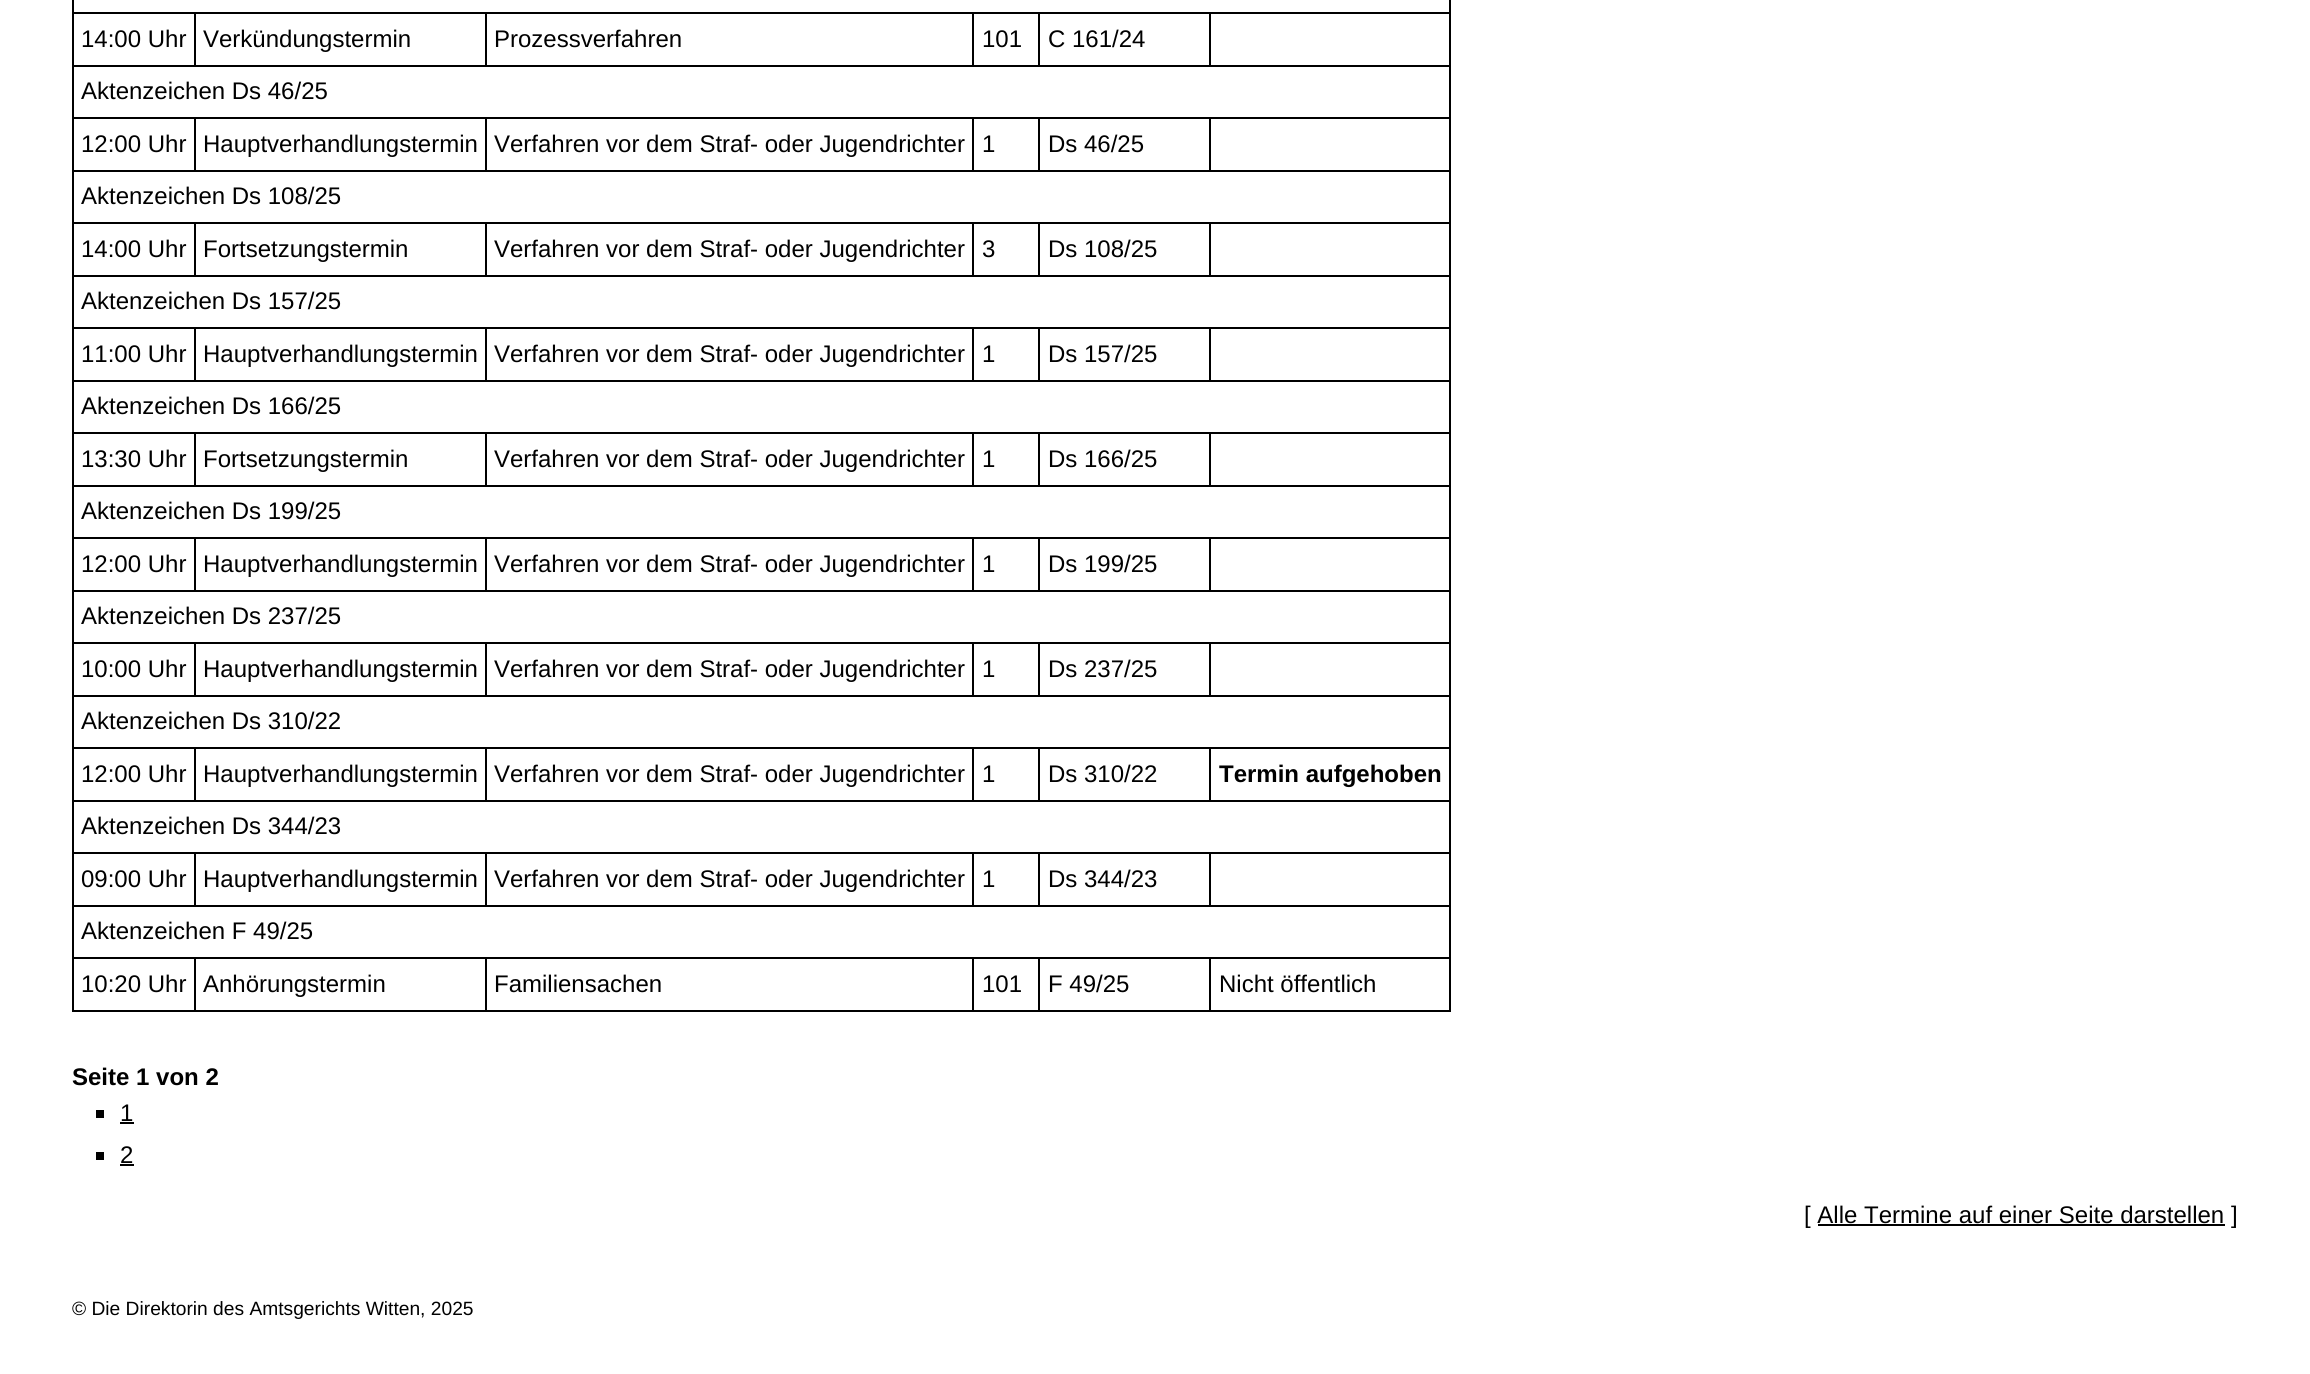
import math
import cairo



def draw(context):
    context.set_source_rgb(1, 1, 1)
    context.paint()
    context.set_source_rgb(0, 0, 0)
    context.rectangle(1449, 0, 2, 1011)
    context.fill()
    context.rectangle(72, 1010, 1379, 2)
    context.fill()
    context.rectangle(72, 0, 2, 1011)
    context.fill()
    context.rectangle(1209, 12, 242, 2)
    context.fill()
    context.rectangle(72, 65, 1379, 2)
    context.fill()
    context.rectangle(1209, 12, 2, 54)
    context.fill()
    context.rectangle(1038, 12, 173, 2)
    context.fill()
    context.rectangle(1038, 12, 2, 54)
    context.fill()
    context.rectangle(972, 12, 68, 2)
    context.fill()
    context.rectangle(972, 12, 2, 54)
    context.fill()
    context.rectangle(485, 12, 489, 2)
    context.fill()
    context.rectangle(485, 12, 2, 54)
    context.fill()
    context.rectangle(194, 12, 292, 2)
    context.fill()
    context.rectangle(194, 12, 2, 54)
    context.fill()
    context.rectangle(72, 12, 123, 2)
    context.fill()
    context.rectangle(1209, 117, 242, 2)
    context.fill()
    context.rectangle(72, 170, 1379, 2)
    context.fill()
    context.rectangle(1209, 117, 2, 54)
    context.fill()
    context.rectangle(1038, 117, 173, 2)
    context.fill()
    context.rectangle(1038, 117, 2, 54)
    context.fill()
    context.rectangle(972, 117, 68, 2)
    context.fill()
    context.rectangle(972, 117, 2, 54)
    context.fill()
    context.rectangle(485, 117, 489, 2)
    context.fill()
    context.rectangle(485, 117, 2, 54)
    context.fill()
    context.rectangle(194, 117, 292, 2)
    context.fill()
    context.rectangle(194, 117, 2, 54)
    context.fill()
    context.rectangle(72, 117, 123, 2)
    context.fill()
    context.rectangle(1209, 222, 242, 2)
    context.fill()
    context.rectangle(72, 275, 1379, 2)
    context.fill()
    context.rectangle(1209, 222, 2, 54)
    context.fill()
    context.rectangle(1038, 222, 173, 2)
    context.fill()
    context.rectangle(1038, 222, 2, 54)
    context.fill()
    context.rectangle(972, 222, 68, 2)
    context.fill()
    context.rectangle(972, 222, 2, 54)
    context.fill()
    context.rectangle(485, 222, 489, 2)
    context.fill()
    context.rectangle(485, 222, 2, 54)
    context.fill()
    context.rectangle(194, 222, 292, 2)
    context.fill()
    context.rectangle(194, 222, 2, 54)
    context.fill()
    context.rectangle(72, 222, 123, 2)
    context.fill()
    context.rectangle(1209, 327, 242, 2)
    context.fill()
    context.rectangle(72, 380, 1379, 2)
    context.fill()
    context.rectangle(1209, 327, 2, 54)
    context.fill()
    context.rectangle(1038, 327, 173, 2)
    context.fill()
    context.rectangle(1038, 327, 2, 54)
    context.fill()
    context.rectangle(972, 327, 68, 2)
    context.fill()
    context.rectangle(972, 327, 2, 54)
    context.fill()
    context.rectangle(485, 327, 489, 2)
    context.fill()
    context.rectangle(485, 327, 2, 54)
    context.fill()
    context.rectangle(194, 327, 292, 2)
    context.fill()
    context.rectangle(194, 327, 2, 54)
    context.fill()
    context.rectangle(72, 327, 123, 2)
    context.fill()
    context.rectangle(1209, 432, 242, 2)
    context.fill()
    context.rectangle(72, 485, 1379, 2)
    context.fill()
    context.rectangle(1209, 432, 2, 54)
    context.fill()
    context.rectangle(1038, 432, 173, 2)
    context.fill()
    context.rectangle(1038, 432, 2, 54)
    context.fill()
    context.rectangle(972, 432, 68, 2)
    context.fill()
    context.rectangle(972, 432, 2, 54)
    context.fill()
    context.rectangle(485, 432, 489, 2)
    context.fill()
    context.rectangle(485, 432, 2, 54)
    context.fill()
    context.rectangle(194, 432, 292, 2)
    context.fill()
    context.rectangle(194, 432, 2, 54)
    context.fill()
    context.rectangle(72, 432, 123, 2)
    context.fill()
    context.rectangle(1209, 537, 242, 2)
    context.fill()
    context.rectangle(72, 590, 1379, 2)
    context.fill()
    context.rectangle(1209, 537, 2, 54)
    context.fill()
    context.rectangle(1038, 537, 173, 2)
    context.fill()
    context.rectangle(1038, 537, 2, 54)
    context.fill()
    context.rectangle(972, 537, 68, 2)
    context.fill()
    context.rectangle(972, 537, 2, 54)
    context.fill()
    context.rectangle(485, 537, 489, 2)
    context.fill()
    context.rectangle(485, 537, 2, 54)
    context.fill()
    context.rectangle(194, 537, 292, 2)
    context.fill()
    context.rectangle(194, 537, 2, 54)
    context.fill()
    context.rectangle(72, 537, 123, 2)
    context.fill()
    context.rectangle(1209, 642, 242, 2)
    context.fill()
    context.rectangle(72, 695, 1379, 2)
    context.fill()
    context.rectangle(1209, 642, 2, 54)
    context.fill()
    context.rectangle(1038, 642, 173, 2)
    context.fill()
    context.rectangle(1038, 642, 2, 54)
    context.fill()
    context.rectangle(972, 642, 68, 2)
    context.fill()
    context.rectangle(972, 642, 2, 54)
    context.fill()
    context.rectangle(485, 642, 489, 2)
    context.fill()
    context.rectangle(485, 642, 2, 54)
    context.fill()
    context.rectangle(194, 642, 292, 2)
    context.fill()
    context.rectangle(194, 642, 2, 54)
    context.fill()
    context.rectangle(72, 642, 123, 2)
    context.fill()
    context.rectangle(1209, 747, 242, 2)
    context.fill()
    context.rectangle(72, 800, 1379, 2)
    context.fill()
    context.rectangle(1209, 747, 2, 54)
    context.fill()
    context.rectangle(1038, 747, 173, 2)
    context.fill()
    context.rectangle(1038, 747, 2, 54)
    context.fill()
    context.rectangle(972, 747, 68, 2)
    context.fill()
    context.rectangle(972, 747, 2, 54)
    context.fill()
    context.rectangle(485, 747, 489, 2)
    context.fill()
    context.rectangle(485, 747, 2, 54)
    context.fill()
    context.rectangle(194, 747, 292, 2)
    context.fill()
    context.rectangle(194, 747, 2, 54)
    context.fill()
    context.rectangle(72, 747, 123, 2)
    context.fill()
    context.rectangle(1209, 852, 242, 2)
    context.fill()
    context.rectangle(72, 905, 1379, 2)
    context.fill()
    context.rectangle(1209, 852, 2, 54)
    context.fill()
    context.rectangle(1038, 852, 173, 2)
    context.fill()
    context.rectangle(1038, 852, 2, 54)
    context.fill()
    context.rectangle(972, 852, 68, 2)
    context.fill()
    context.rectangle(972, 852, 2, 54)
    context.fill()
    context.rectangle(485, 852, 489, 2)
    context.fill()
    context.rectangle(485, 852, 2, 54)
    context.fill()
    context.rectangle(194, 852, 292, 2)
    context.fill()
    context.rectangle(194, 852, 2, 54)
    context.fill()
    context.rectangle(72, 852, 123, 2)
    context.fill()
    context.rectangle(1209, 957, 242, 2)
    context.fill()
    context.rectangle(1209, 957, 2, 54)
    context.fill()
    context.rectangle(1038, 957, 173, 2)
    context.fill()
    context.rectangle(1038, 957, 2, 54)
    context.fill()
    context.rectangle(972, 957, 68, 2)
    context.fill()
    context.rectangle(972, 957, 2, 54)
    context.fill()
    context.rectangle(485, 957, 489, 2)
    context.fill()
    context.rectangle(485, 957, 2, 54)
    context.fill()
    context.rectangle(194, 957, 292, 2)
    context.fill()
    context.rectangle(194, 957, 2, 54)
    context.fill()
    context.rectangle(72, 957, 123, 2)
    context.fill()
    context.rectangle(96, 1110, 8, 8)
    context.fill()
    context.rectangle(120, 1122, 14, 2)
    context.fill()
    context.rectangle(96, 1152, 8, 8)
    context.fill()
    context.rectangle(120, 1164, 14, 2)
    context.fill()
    context.rectangle(1818, 1224, 407, 2)
    context.fill()
    context.select_font_face("Liberation Sans")
    context.set_font_size(24)
    context.move_to(81, 47)
    context.show_text("14:00 Uhr")
    context.move_to(203, 47)
    context.show_text("Verkündungstermin")
    context.move_to(494, 47)
    context.show_text("Prozessverfahren")
    context.move_to(982, 47)
    context.show_text("101")
    context.move_to(1048, 47)
    context.show_text("C 161/24")
    context.move_to(81, 99)
    context.show_text("Aktenzeichen Ds 46/25")
    context.move_to(81, 152)
    context.show_text("12:00 Uhr")
    context.move_to(203, 152)
    context.show_text("Hauptverhandlungstermin")
    context.move_to(494, 152)
    context.show_text("Verfahren vor dem Straf- oder Jugendrichter")
    context.move_to(982, 152)
    context.show_text("1")
    context.move_to(1048, 152)
    context.show_text("Ds 46/25")
    context.move_to(81, 204)
    context.show_text("Aktenzeichen Ds 108/25")
    context.move_to(81, 257)
    context.show_text("14:00 Uhr")
    context.move_to(203, 257)
    context.show_text("Fortsetzungstermin")
    context.move_to(494, 257)
    context.show_text("Verfahren vor dem Straf- oder Jugendrichter")
    context.move_to(982, 257)
    context.show_text("3")
    context.move_to(1048, 257)
    context.show_text("Ds 108/25")
    context.move_to(81, 309)
    context.show_text("Aktenzeichen Ds 157/25")
    context.move_to(81, 362)
    context.show_text("11:00 Uhr")
    context.move_to(203, 362)
    context.show_text("Hauptverhandlungstermin")
    context.move_to(494, 362)
    context.show_text("Verfahren vor dem Straf- oder Jugendrichter")
    context.move_to(982, 362)
    context.show_text("1")
    context.move_to(1048, 362)
    context.show_text("Ds 157/25")
    context.move_to(81, 414)
    context.show_text("Aktenzeichen Ds 166/25")
    context.move_to(81, 467)
    context.show_text("13:30 Uhr")
    context.move_to(203, 467)
    context.show_text("Fortsetzungstermin")
    context.move_to(494, 467)
    context.show_text("Verfahren vor dem Straf- oder Jugendrichter")
    context.move_to(982, 467)
    context.show_text("1")
    context.move_to(1048, 467)
    context.show_text("Ds 166/25")
    context.move_to(81, 519)
    context.show_text("Aktenzeichen Ds 199/25")
    context.move_to(81, 572)
    context.show_text("12:00 Uhr")
    context.move_to(203, 572)
    context.show_text("Hauptverhandlungstermin")
    context.move_to(494, 572)
    context.show_text("Verfahren vor dem Straf- oder Jugendrichter")
    context.move_to(982, 572)
    context.show_text("1")
    context.move_to(1048, 572)
    context.show_text("Ds 199/25")
    context.move_to(81, 624)
    context.show_text("Aktenzeichen Ds 237/25")
    context.move_to(81, 677)
    context.show_text("10:00 Uhr")
    context.move_to(203, 677)
    context.show_text("Hauptverhandlungstermin")
    context.move_to(494, 677)
    context.show_text("Verfahren vor dem Straf- oder Jugendrichter")
    context.move_to(982, 677)
    context.show_text("1")
    context.move_to(1048, 677)
    context.show_text("Ds 237/25")
    context.move_to(81, 729)
    context.show_text("Aktenzeichen Ds 310/22")
    context.move_to(81, 782)
    context.show_text("12:00 Uhr")
    context.move_to(203, 782)
    context.show_text("Hauptverhandlungstermin")
    context.move_to(494, 782)
    context.show_text("Verfahren vor dem Straf- oder Jugendrichter")
    context.move_to(982, 782)
    context.show_text("1")
    context.move_to(1048, 782)
    context.show_text("Ds 310/22")
    context.select_font_face("Liberation Sans", cairo.FontSlant.NORMAL, cairo.FontWeight.BOLD)
    context.move_to(1219, 782)
    context.show_text("Termin aufgehoben")
    context.select_font_face("Liberation Sans")
    context.move_to(81, 834)
    context.show_text("Aktenzeichen Ds 344/23")
    context.move_to(81, 887)
    context.show_text("09:00 Uhr")
    context.move_to(203, 887)
    context.show_text("Hauptverhandlungstermin")
    context.move_to(494, 887)
    context.show_text("Verfahren vor dem Straf- oder Jugendrichter")
    context.move_to(982, 887)
    context.show_text("1")
    context.move_to(1048, 887)
    context.show_text("Ds 344/23")
    context.move_to(81, 939)
    context.show_text("Aktenzeichen F 49/25")
    context.move_to(81, 992)
    context.show_text("10:20 Uhr")
    context.move_to(203, 992)
    context.show_text("Anhörungstermin")
    context.move_to(494, 992)
    context.show_text("Familiensachen")
    context.move_to(982, 992)
    context.show_text("101")
    context.move_to(1048, 992)
    context.show_text("F 49/25")
    context.move_to(1219, 992)
    context.show_text("Nicht öffentlich")
    context.select_font_face("Liberation Sans", cairo.FontSlant.NORMAL, cairo.FontWeight.BOLD)
    context.move_to(72, 1085)
    context.show_text("Seite 1 von 2")
    context.select_font_face("Liberation Sans")
    context.move_to(120, 1121)
    context.show_text("1")
    context.move_to(120, 1163)
    context.show_text("2")
    context.move_to(1804, 1223)
    context.show_text("[ Alle Termine auf einer Seite darstellen ]")
    context.set_font_size(19.2)
    context.move_to(72, 1315)
    context.show_text("© Die Direktorin des Amtsgerichts Witten, 2025")


surface = cairo.ImageSurface(cairo.Format.RGB24, 2310, 1374)
context = cairo.Context(surface)
options = cairo.FontOptions()
options.set_hint_metrics(cairo.HintMetrics.OFF)
options.set_hint_style(cairo.HintStyle.NONE)
context.set_font_options(options)
context.set_miter_limit(4)
draw(context)
surface.write_to_png("out.png")
